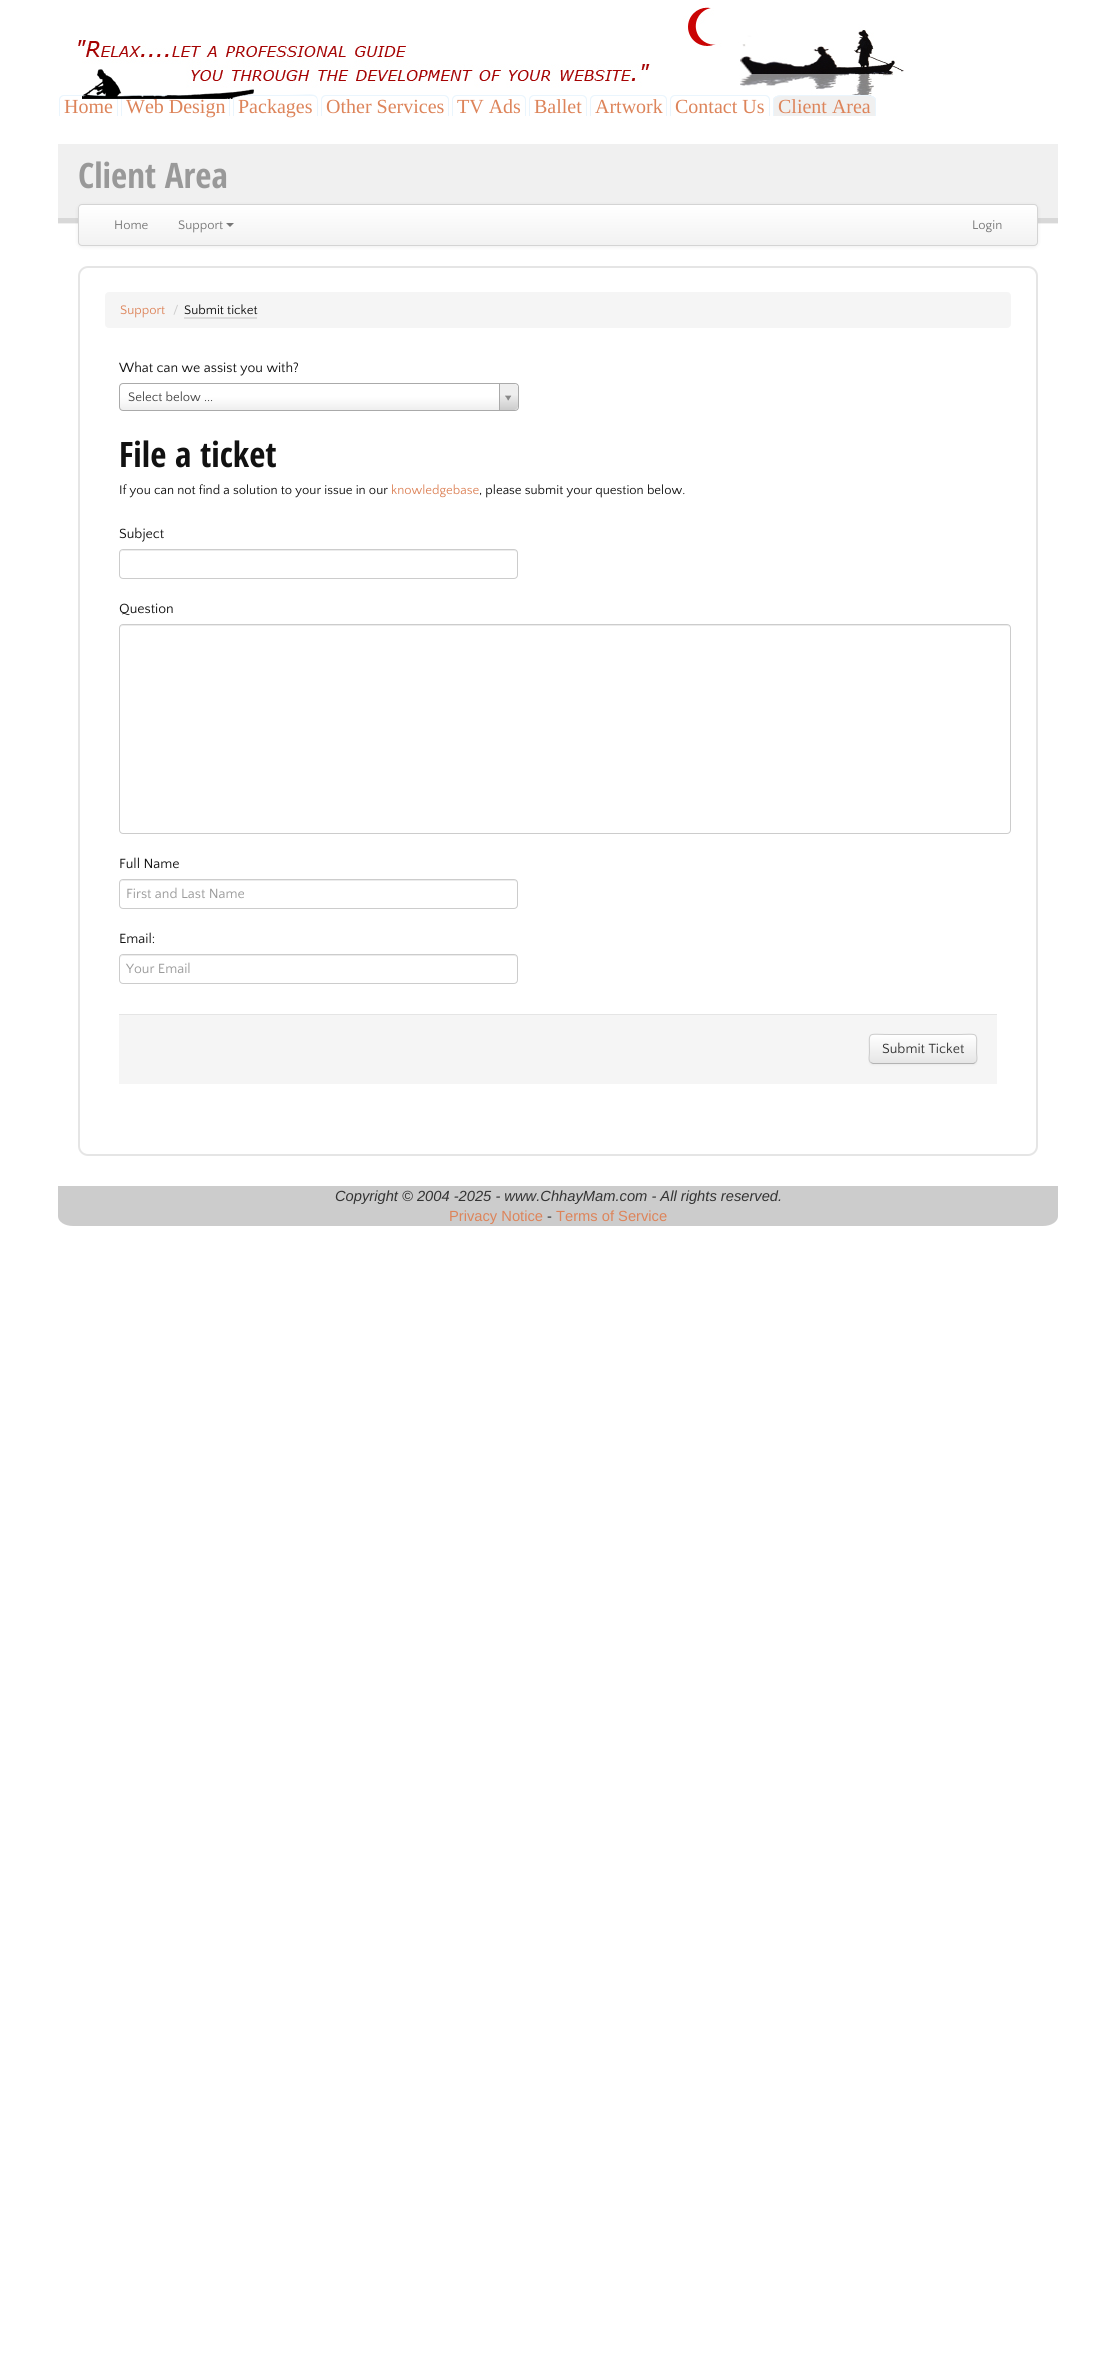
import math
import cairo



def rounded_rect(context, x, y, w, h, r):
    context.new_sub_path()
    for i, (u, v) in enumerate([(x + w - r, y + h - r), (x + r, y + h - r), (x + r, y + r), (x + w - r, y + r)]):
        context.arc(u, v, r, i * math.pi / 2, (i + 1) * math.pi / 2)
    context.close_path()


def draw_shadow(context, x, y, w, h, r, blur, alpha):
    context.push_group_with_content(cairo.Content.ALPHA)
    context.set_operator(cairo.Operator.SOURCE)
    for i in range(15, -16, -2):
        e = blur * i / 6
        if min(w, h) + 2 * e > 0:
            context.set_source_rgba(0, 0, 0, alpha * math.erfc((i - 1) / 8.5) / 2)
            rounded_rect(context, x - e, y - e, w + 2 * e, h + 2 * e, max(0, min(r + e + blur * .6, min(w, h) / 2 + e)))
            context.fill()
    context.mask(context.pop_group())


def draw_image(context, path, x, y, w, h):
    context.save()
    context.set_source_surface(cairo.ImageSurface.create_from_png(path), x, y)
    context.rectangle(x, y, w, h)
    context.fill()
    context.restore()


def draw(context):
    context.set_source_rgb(1, 1, 1)
    context.paint()
    draw_image(context, "images/1.png", 78, 7, 826, 97)
    context.set_source_rgb(234 / 255, 245 / 255, 253 / 255)
    context.set_fill_rule(cairo.FillRule.EVEN_ODD)
    context.new_path()
    context.move_to(64, 95)
    context.line_to(113, 95)
    context.curve_to(116, 95, 118, 97, 118, 100)
    context.line_to(118, 116)
    context.line_to(59, 116)
    context.line_to(59, 100)
    context.curve_to(59, 97, 61, 95, 64, 95)
    context.close_path()
    context.move_to(64, 96)
    context.line_to(113, 96)
    context.curve_to(115, 96, 117, 98, 117, 100)
    context.line_to(117, 116)
    context.line_to(60, 116)
    context.line_to(60, 100)
    context.curve_to(60, 98, 62, 96, 64, 96)
    context.close_path()
    context.fill()
    context.new_path()
    context.move_to(126, 95)
    context.line_to(225, 95)
    context.curve_to(228, 95, 230, 97, 230, 100)
    context.line_to(230, 116)
    context.line_to(121, 116)
    context.line_to(121, 100)
    context.curve_to(121, 97, 123, 95, 126, 95)
    context.close_path()
    context.move_to(126, 96)
    context.line_to(225, 96)
    context.curve_to(227, 96, 229, 98, 229, 100)
    context.line_to(229, 116)
    context.line_to(122, 116)
    context.line_to(122, 100)
    context.curve_to(122, 98, 124, 96, 126, 96)
    context.close_path()
    context.fill()
    context.new_path()
    context.move_to(238, 95)
    context.line_to(288, 95)
    context.curve_to(321, 95, 318, 89, 318, 116)
    context.line_to(233, 116)
    context.line_to(233, 100)
    context.curve_to(233, 97, 235, 95, 238, 95)
    context.close_path()
    context.move_to(238, 96)
    context.line_to(313, 96)
    context.curve_to(315, 96, 317, 98, 317, 100)
    context.line_to(317, 116)
    context.line_to(234, 116)
    context.line_to(234, 100)
    context.curve_to(234, 98, 236, 96, 238, 96)
    context.close_path()
    context.fill()
    draw_image(context, "images/2.png", 82, 69, 172, 30)
    context.new_path()
    context.move_to(326, 95)
    context.line_to(444, 95)
    context.curve_to(447, 95, 449, 97, 449, 100)
    context.line_to(449, 116)
    context.line_to(321, 116)
    context.line_to(321, 100)
    context.curve_to(321, 97, 323, 95, 326, 95)
    context.close_path()
    context.move_to(326, 96)
    context.line_to(444, 96)
    context.curve_to(446, 96, 448, 98, 448, 100)
    context.line_to(448, 116)
    context.line_to(322, 116)
    context.line_to(322, 100)
    context.curve_to(322, 98, 324, 96, 326, 96)
    context.close_path()
    context.fill()
    context.new_path()
    context.move_to(457, 95)
    context.line_to(521, 95)
    context.curve_to(524, 95, 526, 97, 526, 100)
    context.line_to(526, 116)
    context.line_to(452, 116)
    context.line_to(452, 100)
    context.curve_to(452, 97, 454, 95, 457, 95)
    context.close_path()
    context.move_to(457, 96)
    context.line_to(521, 96)
    context.curve_to(523, 96, 525, 98, 525, 100)
    context.line_to(525, 116)
    context.line_to(453, 116)
    context.line_to(453, 100)
    context.curve_to(453, 98, 455, 96, 457, 96)
    context.close_path()
    context.fill()
    context.new_path()
    context.move_to(534, 95)
    context.line_to(582, 95)
    context.curve_to(585, 95, 587, 97, 587, 100)
    context.line_to(587, 116)
    context.line_to(529, 116)
    context.line_to(529, 100)
    context.curve_to(529, 97, 531, 95, 534, 95)
    context.close_path()
    context.move_to(534, 96)
    context.line_to(582, 96)
    context.curve_to(584, 96, 586, 98, 586, 100)
    context.line_to(586, 116)
    context.line_to(530, 116)
    context.line_to(530, 100)
    context.curve_to(530, 98, 532, 96, 534, 96)
    context.close_path()
    context.fill()
    context.new_path()
    context.move_to(595, 95)
    context.line_to(662, 95)
    context.curve_to(665, 95, 667, 97, 667, 100)
    context.line_to(667, 116)
    context.line_to(590, 116)
    context.line_to(590, 100)
    context.curve_to(590, 97, 592, 95, 595, 95)
    context.close_path()
    context.move_to(595, 96)
    context.line_to(662, 96)
    context.curve_to(664, 96, 666, 98, 666, 100)
    context.line_to(666, 116)
    context.line_to(591, 116)
    context.line_to(591, 100)
    context.curve_to(591, 98, 593, 96, 595, 96)
    context.close_path()
    context.fill()
    context.new_path()
    context.move_to(675, 95)
    context.line_to(765, 95)
    context.curve_to(768, 95, 770, 97, 770, 100)
    context.line_to(770, 116)
    context.line_to(670, 116)
    context.line_to(670, 100)
    context.curve_to(670, 97, 672, 95, 675, 95)
    context.close_path()
    context.move_to(675, 96)
    context.line_to(765, 96)
    context.curve_to(767, 96, 769, 98, 769, 100)
    context.line_to(769, 116)
    context.line_to(671, 116)
    context.line_to(671, 100)
    context.curve_to(671, 98, 673, 96, 675, 96)
    context.close_path()
    context.fill()
    context.set_source_rgb(240 / 255, 240 / 255, 240 / 255)
    context.set_fill_rule(cairo.FillRule.WINDING)
    context.new_path()
    context.move_to(783, 95)
    context.line_to(866, 95)
    context.curve_to(872, 95, 876, 97, 876, 100)
    context.line_to(876, 116)
    context.line_to(773, 116)
    context.line_to(773, 100)
    context.curve_to(773, 97, 777, 95, 783, 95)
    context.close_path()
    context.fill()
    context.set_source_rgb(234 / 255, 245 / 255, 253 / 255)
    context.set_fill_rule(cairo.FillRule.EVEN_ODD)
    context.new_path()
    context.move_to(783, 95)
    context.line_to(866, 95)
    context.curve_to(872, 95, 876, 97, 876, 100)
    context.line_to(876, 116)
    context.line_to(773, 116)
    context.line_to(773, 100)
    context.curve_to(773, 97, 777, 95, 783, 95)
    context.close_path()
    context.move_to(783, 96)
    context.line_to(866, 96)
    context.curve_to(871, 96, 875, 98, 875, 100)
    context.line_to(875, 116)
    context.line_to(774, 116)
    context.line_to(774, 100)
    context.curve_to(774, 98, 778, 96, 783, 96)
    context.close_path()
    context.fill()
    context.set_source_rgb(240 / 255, 240 / 255, 240 / 255)
    context.rectangle(58, 144, 1000, 80)
    context.fill()
    context.set_source_rgb(216 / 255, 216 / 255, 216 / 255)
    context.rectangle(58, 218, 1000, 5)
    context.fill()
    context.set_source_rgb(0, 0, 0)
    draw_shadow(context, 78, 205, 960, 42, 4, 2, 0.07)
    context.save()
    context.set_fill_rule(cairo.FillRule.WINDING)
    rounded_rect(context, 78, 204, 960, 42, 4)
    context.clip()
    gradient = cairo.LinearGradient(558, 205, 558, 245)
    gradient.add_color_stop_rgba(0, 1, 1, 1, 1)
    gradient.add_color_stop_rgba(1, 242 / 255, 242 / 255, 242 / 255, 1)
    context.set_source(gradient)
    context.rectangle(78, 205, 960, 40)
    context.fill()
    context.restore()
    rounded_rect(context, 78.5, 204.5, 959, 41, 3.5)
    context.set_source_rgb(212 / 255, 212 / 255, 212 / 255)
    context.set_line_width(1)
    context.stroke()
    context.set_source_rgb(119 / 255, 119 / 255, 119 / 255)
    context.set_fill_rule(cairo.FillRule.WINDING)
    context.new_path()
    context.move_to(226, 223)
    context.line_to(234, 223)
    context.line_to(230, 227)
    context.close_path()
    context.fill()
    rounded_rect(context, 79, 267, 958, 888, 9)
    context.set_source_rgb(229 / 255, 229 / 255, 229 / 255)
    context.set_line_width(2)
    context.stroke()
    context.set_source_rgb(245 / 255, 245 / 255, 245 / 255)
    rounded_rect(context, 105, 292, 906, 36, 4)
    context.fill()
    context.set_source_rgb(221 / 255, 221 / 255, 221 / 255)
    context.rectangle(184, 317, 73, 2)
    context.fill()
    gradient = cairo.LinearGradient(120, 410, 120, 384)
    gradient.add_color_stop_rgba(0, 238 / 255, 238 / 255, 238 / 255, 1)
    gradient.add_color_stop_rgba(0.5, 1, 1, 1, 1)
    context.set_source(gradient)
    rounded_rect(context, 120, 384, 398, 26, 3)
    context.fill()
    rounded_rect(context, 119.5, 383.5, 399, 27, 3.5)
    context.set_source_rgb(170 / 255, 170 / 255, 170 / 255)
    context.set_line_width(1)
    context.stroke()
    context.save()
    rounded_rect(context, 120, 384, 398, 26, 3)
    context.clip()
    gradient = cairo.LinearGradient(500, 410, 500, 384)
    gradient.add_color_stop_rgba(0, 204 / 255, 204 / 255, 204 / 255, 1)
    gradient.add_color_stop_rgba(0.6, 238 / 255, 238 / 255, 238 / 255, 1)
    context.set_source(gradient)
    context.new_path()
    context.move_to(499, 384)
    context.line_to(514, 384)
    context.curve_to(516, 384, 518, 386, 518, 388)
    context.line_to(518, 406)
    context.curve_to(518, 408, 516, 410, 514, 410)
    context.line_to(499, 410)
    context.close_path()
    context.fill()
    context.restore()
    context.rectangle(499, 384, 1, 26)
    context.fill()
    draw_image(context, "images/3.png", 505, 395, 7, 6)
    context.set_source_rgb(236 / 255, 236 / 255, 236 / 255)
    context.new_path()
    context.move_to(123, 551)
    context.line_to(514, 551)
    context.curve_to(516, 551, 517, 552, 517, 554)
    context.curve_to(517, 552, 516, 550, 514, 550)
    context.line_to(123, 550)
    context.line_to(121, 551)
    context.line_to(120, 554)
    context.curve_to(120, 552, 121, 551, 123, 551)
    context.close_path()
    context.fill()
    rounded_rect(context, 119.5, 549.5, 398, 29, 3.5)
    context.set_source_rgb(204 / 255, 204 / 255, 204 / 255)
    context.stroke()
    context.set_source_rgb(236 / 255, 236 / 255, 236 / 255)
    context.new_path()
    context.move_to(123, 626)
    context.line_to(1007, 626)
    context.curve_to(1009, 626, 1010, 627, 1010, 629)
    context.curve_to(1010, 627, 1009, 625, 1007, 625)
    context.line_to(123, 625)
    context.curve_to(121, 625, 120, 627, 120, 629)
    context.curve_to(120, 627, 121, 626, 123, 626)
    context.close_path()
    context.fill()
    rounded_rect(context, 119.5, 624.5, 891, 209, 3.5)
    context.set_source_rgb(204 / 255, 204 / 255, 204 / 255)
    context.stroke()
    context.set_source_rgb(236 / 255, 236 / 255, 236 / 255)
    context.new_path()
    context.move_to(123, 881)
    context.line_to(514, 881)
    context.curve_to(516, 881, 517, 882, 517, 884)
    context.curve_to(517, 882, 516, 880, 514, 880)
    context.line_to(123, 880)
    context.line_to(121, 881)
    context.line_to(120, 884)
    context.curve_to(120, 882, 121, 881, 123, 881)
    context.close_path()
    context.fill()
    rounded_rect(context, 119.5, 879.5, 398, 29, 3.5)
    context.set_source_rgb(204 / 255, 204 / 255, 204 / 255)
    context.stroke()
    context.set_source_rgb(236 / 255, 236 / 255, 236 / 255)
    context.new_path()
    context.move_to(123, 956)
    context.line_to(514, 956)
    context.curve_to(516, 956, 517, 957, 517, 959)
    context.curve_to(517, 957, 516, 955, 514, 955)
    context.line_to(123, 955)
    context.line_to(121, 956)
    context.line_to(120, 959)
    context.curve_to(120, 957, 121, 956, 123, 956)
    context.close_path()
    context.fill()
    rounded_rect(context, 119.5, 954.5, 398, 29, 3.5)
    context.set_source_rgb(204 / 255, 204 / 255, 204 / 255)
    context.stroke()
    context.set_source_rgb(245 / 255, 245 / 255, 245 / 255)
    context.rectangle(119, 1015, 878, 69)
    context.fill()
    context.set_source_rgb(229 / 255, 229 / 255, 229 / 255)
    context.rectangle(119, 1014, 878, 1)
    context.fill()
    context.set_source_rgb(0, 0, 0)
    draw_shadow(context, 869, 1035, 108, 30, 4, 1, 0.05)
    context.set_source_rgb(245 / 255, 245 / 255, 245 / 255)
    rounded_rect(context, 869, 1034, 108, 30, 4)
    context.fill()
    context.save()
    rounded_rect(context, 869, 1034, 108, 30, 4)
    context.clip()
    gradient = cairo.LinearGradient(923, 1035, 923, 1063)
    gradient.add_color_stop_rgba(0, 1, 1, 1, 1)
    gradient.add_color_stop_rgba(1, 230 / 255, 230 / 255, 230 / 255, 1)
    context.set_source(gradient)
    context.rectangle(869, 1035, 108, 28)
    context.fill()
    context.restore()
    context.new_path()
    context.move_to(975.5, 1062.5)
    context.line_to(973.5, 1063.5)
    context.line_to(889.5, 1063.5)
    context.line_to(873, 1063.5)
    context.line_to(870.5, 1062.5)
    context.set_source_rgb(179 / 255, 179 / 255, 179 / 255)
    context.stroke()
    context.new_path()
    context.move_to(870.5, 1062.5)
    context.curve_to(868, 1060, 869.5, 1055.5, 869.5, 1052.5)
    context.curve_to(869.5, 1030.5, 866, 1034.5, 889.5, 1034.5)
    context.line_to(956.5, 1034.5)
    context.curve_to(980, 1034.5, 976.5, 1030.5, 976.5, 1052.5)
    context.curve_to(976.5, 1055.5, 978, 1060, 975.5, 1062.5)
    context.set_source_rgb(204 / 255, 204 / 255, 204 / 255)
    context.stroke()
    context.new_path()
    context.move_to(58, 1186)
    context.line_to(1058, 1186)
    context.line_to(1058, 1216)
    context.curve_to(1058, 1222, 1051, 1226, 1043, 1226)
    context.line_to(73, 1226)
    context.curve_to(65, 1226, 58, 1222, 58, 1216)
    context.close_path()
    context.fill()
    context.select_font_face("Liberation Serif")
    context.set_font_size(20)
    context.set_source_rgb(221 / 255, 132 / 255, 90 / 255)
    context.move_to(64, 113)
    context.show_text("Home")
    context.move_to(126, 113)
    context.show_text("Web Design")
    context.move_to(238, 113)
    context.show_text("Packages")
    context.move_to(326, 113)
    context.show_text("Other Services")
    context.move_to(457, 113)
    context.show_text("TV Ads")
    context.move_to(534, 113)
    context.show_text("Ballet")
    context.move_to(595, 113)
    context.show_text("Artwork")
    context.move_to(675, 113)
    context.show_text("Contact Us")
    context.move_to(778, 113)
    context.show_text("Client Area")
    context.select_font_face("Open Sans Condensed", cairo.FontSlant.NORMAL, cairo.FontWeight.BOLD)
    context.set_font_size(35)
    context.set_source_rgb(153 / 255, 153 / 255, 153 / 255)
    context.move_to(78, 188)
    context.show_text("Client Area")
    context.select_font_face("Quattrocento Sans")
    context.set_font_size(13)
    context.set_source_rgb(119 / 255, 119 / 255, 119 / 255)
    context.move_to(114, 229)
    context.show_text("Home")
    context.move_to(178, 229)
    context.show_text("Support")
    context.move_to(972, 229)
    context.show_text("Login")
    context.set_source_rgb(221 / 255, 132 / 255, 90 / 255)
    context.move_to(120, 314)
    context.show_text("Support")
    context.set_source_rgb(204 / 255, 204 / 255, 204 / 255)
    context.move_to(173, 314)
    context.show_text("/")
    context.set_source_rgb(17 / 255, 17 / 255, 17 / 255)
    context.move_to(184, 314)
    context.show_text("Submit ticket")
    context.set_font_size(14)
    context.move_to(119, 372)
    context.show_text("What can we assist you with?")
    context.set_font_size(13)
    context.set_source_rgb(68 / 255, 68 / 255, 68 / 255)
    context.move_to(128, 401)
    context.show_text("Select below ...")
    context.select_font_face("Open Sans Condensed", cairo.FontSlant.NORMAL, cairo.FontWeight.BOLD)
    context.set_font_size(35)
    context.set_source_rgb(17 / 255, 17 / 255, 17 / 255)
    context.move_to(119, 467)
    context.show_text("File a ticket")
    context.select_font_face("Quattrocento Sans")
    context.set_font_size(13)
    context.move_to(119, 494)
    context.show_text("If you can not find a solution to your issue in our")
    context.set_source_rgb(221 / 255, 132 / 255, 90 / 255)
    context.move_to(391, 494)
    context.show_text("knowledgebase")
    context.set_source_rgb(17 / 255, 17 / 255, 17 / 255)
    context.move_to(479, 494)
    context.show_text(", please submit your question below.")
    context.set_font_size(14)
    context.move_to(119, 538)
    context.show_text("Subject")
    context.move_to(119, 613)
    context.show_text("Question")
    context.move_to(119, 868)
    context.show_text("Full Name")
    context.set_source_rgb(153 / 255, 153 / 255, 153 / 255)
    context.move_to(126, 898)
    context.show_text("First and Last Name")
    context.set_source_rgb(17 / 255, 17 / 255, 17 / 255)
    context.move_to(119, 943)
    context.show_text("Email:")
    context.set_source_rgb(153 / 255, 153 / 255, 153 / 255)
    context.move_to(126, 973)
    context.show_text("Your Email")
    context.set_source_rgb(51 / 255, 51 / 255, 51 / 255)
    context.move_to(882, 1053)
    context.show_text("Submit Ticket")
    context.select_font_face("Liberation Sans", cairo.FontSlant.ITALIC)
    context.set_font_size(14.7)
    context.move_to(335, 1201)
    context.show_text("Copyright © 2004 -2025 - www.ChhayMam.com - All rights reserved.")
    context.select_font_face("Liberation Sans")
    context.set_source_rgb(221 / 255, 132 / 255, 90 / 255)
    context.move_to(449, 1221)
    context.show_text("Privacy Notice")
    context.set_source_rgb(51 / 255, 51 / 255, 51 / 255)
    context.move_to(547, 1221)
    context.show_text("-")
    context.set_source_rgb(221 / 255, 132 / 255, 90 / 255)
    context.move_to(556, 1221)
    context.show_text("Terms of Service")


surface = cairo.ImageSurface(cairo.Format.RGB24, 1116, 2360)
context = cairo.Context(surface)
options = cairo.FontOptions()
options.set_hint_metrics(cairo.HintMetrics.OFF)
options.set_hint_style(cairo.HintStyle.NONE)
context.set_font_options(options)
context.set_miter_limit(4)
draw(context)
surface.write_to_png("out.png")
